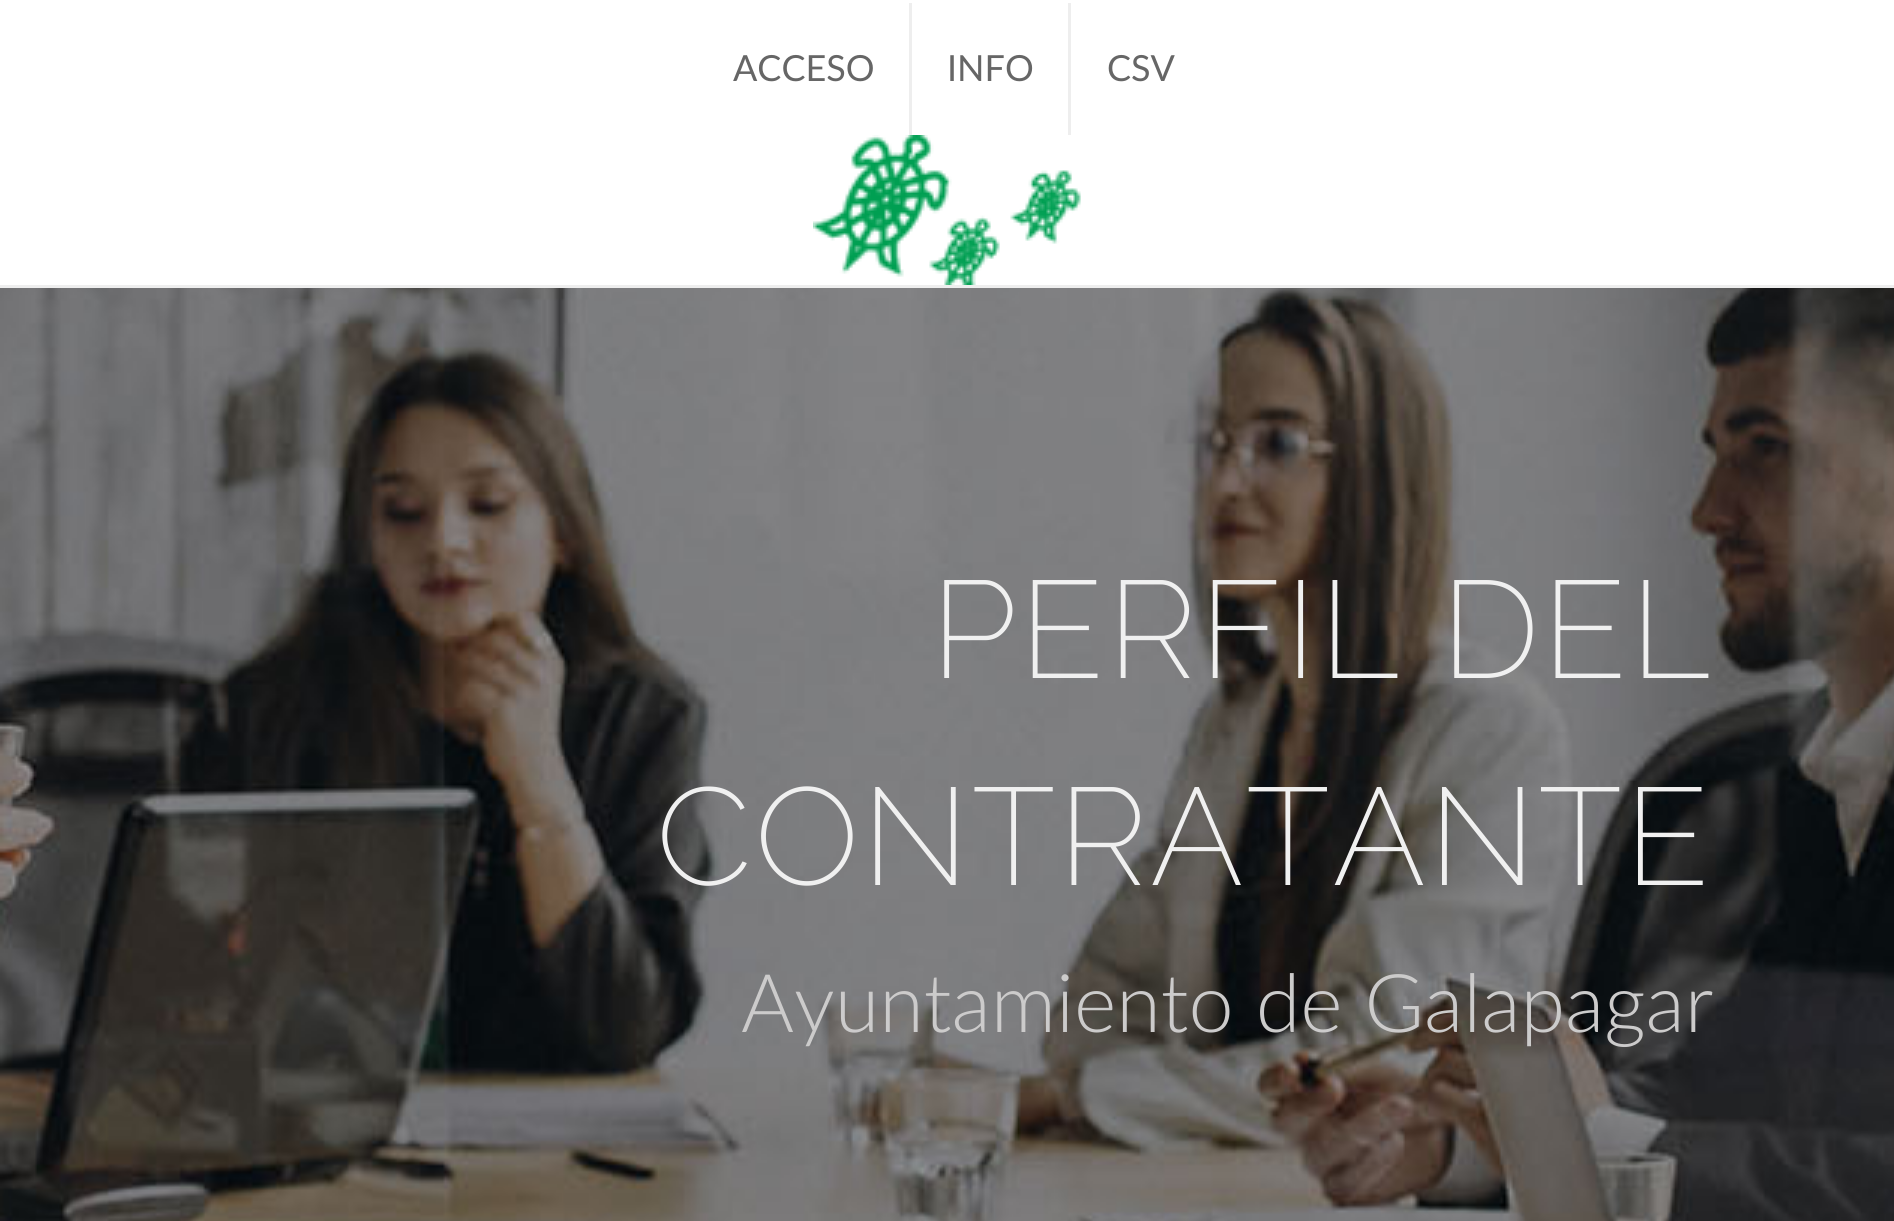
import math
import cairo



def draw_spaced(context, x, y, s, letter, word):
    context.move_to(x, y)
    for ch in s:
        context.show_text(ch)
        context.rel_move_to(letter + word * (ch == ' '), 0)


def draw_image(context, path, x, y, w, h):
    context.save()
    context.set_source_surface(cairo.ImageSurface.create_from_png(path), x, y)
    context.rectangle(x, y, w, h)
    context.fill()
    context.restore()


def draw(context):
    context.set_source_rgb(1, 1, 1)
    context.paint()
    context.set_source_rgb(238 / 255, 238 / 255, 238 / 255)
    context.rectangle(0, 285, 1894, 3)
    context.fill()
    context.rectangle(909, 3, 3, 132)
    context.fill()
    context.rectangle(1068, 3, 3, 132)
    context.fill()
    draw_image(context, "images/1.png", 813, 135, 268, 150)
    draw_image(context, "images/2.png", 0, 288, 1894, 933)
    context.select_font_face("Lato")
    context.set_font_size(36)
    context.set_source_rgb(102 / 255, 102 / 255, 102 / 255)
    context.move_to(733, 81)
    context.show_text("ACCESO")
    context.move_to(947, 81)
    context.show_text("INFO")
    context.move_to(1107, 81)
    context.show_text("CSV")
    context.select_font_face("Raleway ExtraLight")
    context.set_font_size(138)
    context.set_source_rgb(240 / 255, 240 / 255, 240 / 255)
    draw_spaced(context, 931, 678, "PERFIL DEL", 3, 0)
    draw_spaced(context, 656, 885, "CONTRATANTE", 3, 0)
    context.select_font_face("Lato Light")
    context.set_font_size(81)
    context.set_source_rgb(204 / 255, 203 / 255, 203 / 255)
    context.move_to(741, 1032)
    context.show_text("Ayuntamiento de Galapagar")


surface = cairo.ImageSurface(cairo.Format.RGB24, 1894, 1221)
context = cairo.Context(surface)
options = cairo.FontOptions()
options.set_hint_metrics(cairo.HintMetrics.OFF)
options.set_hint_style(cairo.HintStyle.NONE)
context.set_font_options(options)
context.set_miter_limit(4)
draw(context)
surface.write_to_png("out.png")
